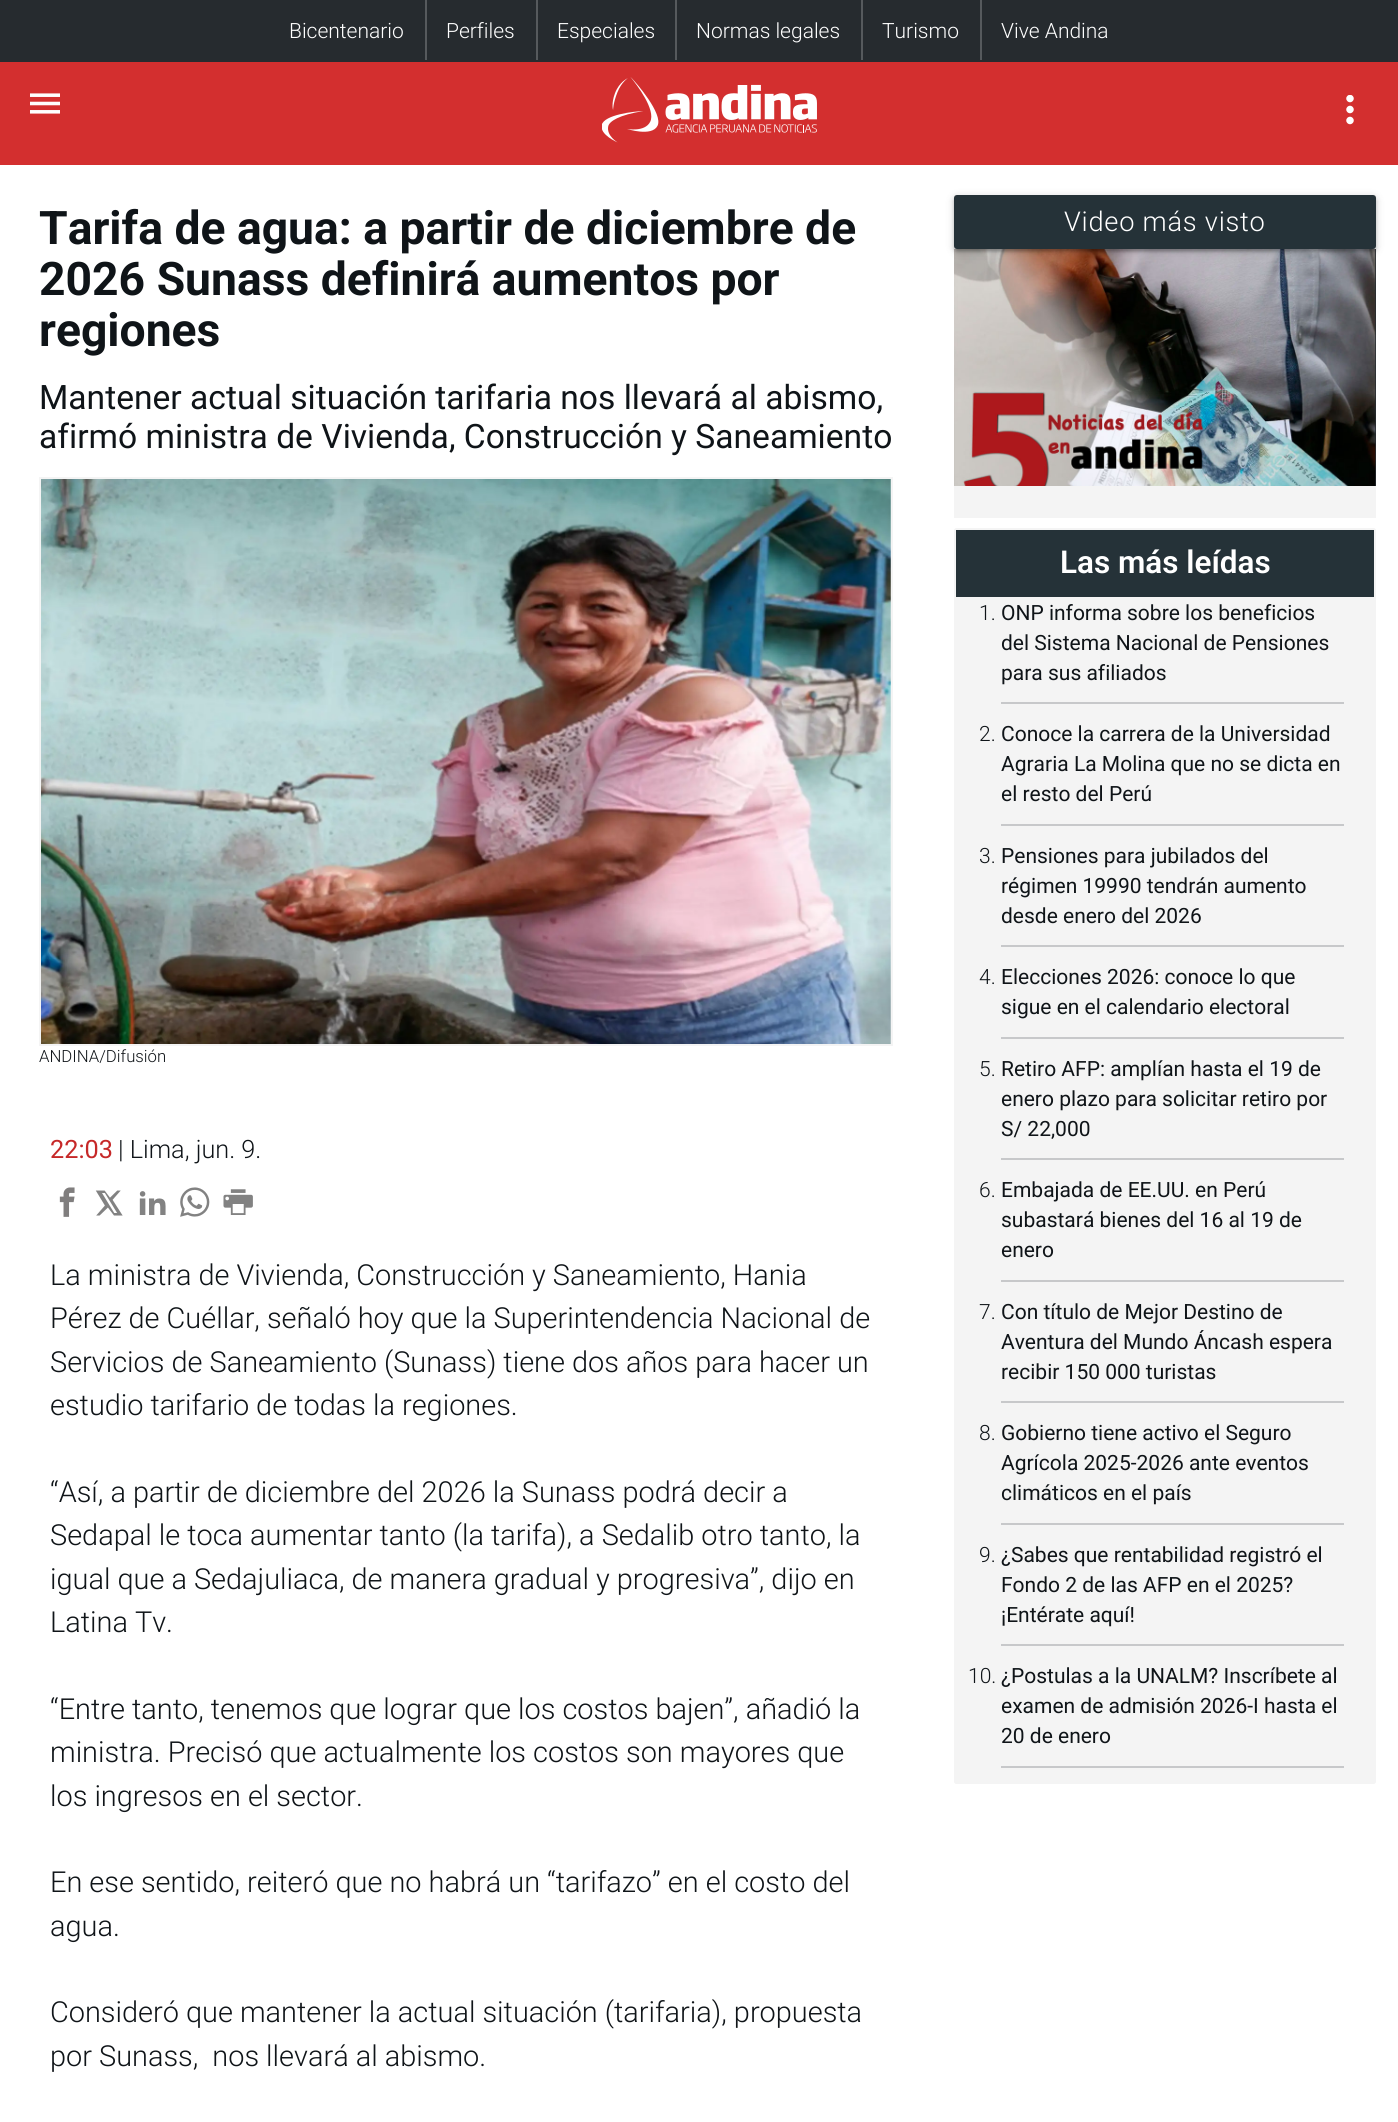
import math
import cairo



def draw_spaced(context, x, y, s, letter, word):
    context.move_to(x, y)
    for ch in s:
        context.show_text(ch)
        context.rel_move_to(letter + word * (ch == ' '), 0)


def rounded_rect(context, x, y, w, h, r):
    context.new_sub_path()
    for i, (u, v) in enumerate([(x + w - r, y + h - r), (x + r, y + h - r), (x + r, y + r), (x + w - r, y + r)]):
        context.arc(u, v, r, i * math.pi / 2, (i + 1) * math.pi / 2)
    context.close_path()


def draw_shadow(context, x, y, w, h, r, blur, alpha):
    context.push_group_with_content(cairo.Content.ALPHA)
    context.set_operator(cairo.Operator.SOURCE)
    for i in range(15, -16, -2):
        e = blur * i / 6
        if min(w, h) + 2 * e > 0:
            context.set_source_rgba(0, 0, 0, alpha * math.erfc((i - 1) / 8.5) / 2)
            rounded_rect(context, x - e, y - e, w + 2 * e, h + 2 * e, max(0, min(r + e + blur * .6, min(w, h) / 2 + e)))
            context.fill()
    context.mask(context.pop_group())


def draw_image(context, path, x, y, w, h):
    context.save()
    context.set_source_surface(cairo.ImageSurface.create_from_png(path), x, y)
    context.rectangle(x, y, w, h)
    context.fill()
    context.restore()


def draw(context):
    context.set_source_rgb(1, 1, 1)
    context.paint()
    context.set_source_rgb(211 / 255, 47 / 255, 47 / 255)
    context.rectangle(0, 62, 1398, 103)
    context.fill()
    context.set_source_rgb(38 / 255, 43 / 255, 47 / 255)
    context.rectangle(0, 0, 1398, 62)
    context.fill()
    context.set_source_rgb(86 / 255, 90 / 255, 93 / 255)
    context.rectangle(425, 0, 2, 60)
    context.fill()
    context.rectangle(536, 0, 2, 60)
    context.fill()
    context.rectangle(675, 0, 2, 60)
    context.fill()
    context.rectangle(861, 0, 2, 60)
    context.fill()
    context.rectangle(980, 0, 2, 60)
    context.fill()
    draw_image(context, "images/1.png", 30, 93, 30, 21)
    draw_image(context, "images/2.png", 602, 77, 215, 66)
    draw_image(context, "images/3.png", 1346, 95, 8, 30)
    context.rectangle(40, 478, 852, 567)
    context.set_source_rgb(244 / 255, 244 / 255, 244 / 255)
    context.stroke()
    draw_image(context, "images/4.png", 41, 479, 850, 565)
    draw_image(context, "images/5.png", 59, 1187, 16, 30)
    draw_image(context, "images/6.png", 95, 1190, 28, 26)
    draw_image(context, "images/7.png", 139, 1191, 27, 24)
    draw_image(context, "images/8.png", 180, 1187, 30, 30)
    draw_image(context, "images/9.png", 223, 1189, 30, 26)
    context.rectangle(954, 195, 422, 323)
    context.fill()
    context.set_source_rgb(38 / 255, 43 / 255, 47 / 255)
    context.rectangle(1375, 249, 1, 237)
    context.fill()
    draw_image(context, "images/10.png", 954, 249, 422, 237)
    context.set_source_rgb(0, 0, 0)
    draw_shadow(context, 954, 197, 422, 54, 3, 4, 0.2)
    draw_shadow(context, 957, 203, 416, 48, 0, 1, 0.12)
    draw_shadow(context, 954, 198, 422, 54, 3, 1.5, 0.14)
    context.set_source_rgb(37 / 255, 50 / 255, 56 / 255)
    rounded_rect(context, 954, 195, 422, 54, 3)
    context.fill()
    context.set_source_rgb(244 / 255, 244 / 255, 244 / 255)
    rounded_rect(context, 954, 528, 422, 1256, 3)
    context.fill()
    context.set_fill_rule(cairo.FillRule.EVEN_ODD)
    context.new_path()
    context.move_to(957, 528)
    context.curve_to(955, 528, 954, 529, 954, 531)
    context.line_to(954, 1781)
    context.curve_to(954, 1783, 955, 1784, 957, 1784)
    context.line_to(1373, 1784)
    context.curve_to(1375, 1784, 1376, 1783, 1376, 1781)
    context.line_to(1376, 531)
    context.curve_to(1376, 529, 1375, 528, 1373, 528)
    context.close_path()
    context.move_to(956, 530)
    context.line_to(956, 1782)
    context.line_to(1374, 1782)
    context.line_to(1374, 530)
    context.close_path()
    context.fill()
    context.set_source_rgb(37 / 255, 50 / 255, 56 / 255)
    context.rectangle(956, 530, 418, 67)
    context.fill()
    context.set_source_rgb(199 / 255, 200 / 255, 202 / 255)
    context.rectangle(1001, 702, 343, 2)
    context.fill()
    context.rectangle(1001, 824, 343, 2)
    context.fill()
    context.rectangle(1001, 945, 343, 2)
    context.fill()
    context.rectangle(1001, 1037, 343, 2)
    context.fill()
    context.rectangle(1001, 1158, 343, 2)
    context.fill()
    context.rectangle(1001, 1280, 343, 2)
    context.fill()
    context.rectangle(1001, 1401, 343, 2)
    context.fill()
    context.rectangle(1001, 1523, 343, 2)
    context.fill()
    context.rectangle(1001, 1644, 343, 2)
    context.fill()
    context.rectangle(1001, 1766, 343, 2)
    context.fill()
    context.select_font_face("Roboto Light")
    context.set_font_size(21)
    context.set_source_rgb(1, 1, 1)
    context.move_to(289, 38)
    context.show_text("Bicentenario")
    context.move_to(446, 38)
    context.show_text("Perfiles")
    context.move_to(557, 38)
    context.show_text("Especiales")
    context.move_to(696, 38)
    context.show_text("Normas legales")
    context.move_to(882, 38)
    context.show_text("Turismo")
    context.move_to(1001, 38)
    context.show_text("Vive Andina")
    context.select_font_face("Roboto", cairo.FontSlant.NORMAL, cairo.FontWeight.BOLD)
    context.set_font_size(46.25)
    context.set_source_rgb(15 / 255, 20 / 255, 24 / 255)
    context.move_to(39, 244)
    context.show_text("Tarifa de agua: a partir de diciembre de")
    context.move_to(39, 295)
    context.show_text("2026 Sunass definirá aumentos por")
    context.move_to(39, 346)
    context.show_text("regiones")
    context.select_font_face("Roboto")
    context.set_font_size(33.6)
    context.move_to(39, 409)
    context.show_text("Mantener actual situación tarifaria nos llevará al abismo,")
    context.move_to(39, 448)
    context.show_text("afirmó ministra de Vivienda, Construcción y Saneamiento")
    context.select_font_face("Roboto Light")
    context.set_font_size(16.75)
    context.move_to(39, 1062)
    context.show_text("ANDINA/Difusión")
    context.select_font_face("Roboto")
    context.set_font_size(25.25)
    context.set_source_rgb(198 / 255, 40 / 255, 40 / 255)
    context.move_to(50, 1158)
    context.show_text("22:03")
    context.select_font_face("Roboto Light")
    context.set_source_rgb(15 / 255, 20 / 255, 24 / 255)
    context.move_to(118, 1158)
    context.show_text("| Lima, jun. 9.")
    context.set_font_size(28.9)
    context.move_to(50, 1285)
    context.show_text("La ministra de Vivienda, Construcción y Saneamiento, Hania")
    context.move_to(50, 1328)
    context.show_text("Pérez de Cuéllar, señaló hoy que la Superintendencia Nacional de")
    context.move_to(50, 1372)
    context.show_text("Servicios de Saneamiento (Sunass) tiene dos años para hacer un")
    context.move_to(50, 1415)
    context.show_text("estudio tarifario de todas la regiones.")
    context.move_to(50, 1502)
    context.show_text("“Así, a partir de diciembre del 2026 la Sunass podrá decir a")
    context.move_to(50, 1545)
    context.show_text("Sedapal le toca aumentar tanto (la tarifa), a Sedalib otro tanto, la")
    context.move_to(50, 1589)
    context.show_text("igual que a Sedajuliaca, de manera gradual y progresiva”, dijo en")
    context.move_to(50, 1632)
    context.show_text("Latina Tv.")
    context.move_to(50, 1719)
    context.show_text("“Entre tanto, tenemos que lograr que los costos bajen”, añadió la")
    context.move_to(50, 1762)
    context.show_text("ministra. Precisó que actualmente los costos son mayores que")
    context.move_to(50, 1806)
    context.show_text("los ingresos en el sector.")
    context.move_to(50, 1892)
    context.show_text("En ese sentido, reiteró que no habrá un “tarifazo” en el costo del")
    context.move_to(50, 1936)
    context.show_text("agua.")
    context.move_to(50, 2022)
    context.show_text("Consideró que mantener la actual situación (tarifaria), propuesta")
    context.move_to(50, 2066)
    context.show_text("por Sunass,  nos llevará al abismo.")
    context.set_font_size(27.25)
    context.set_source_rgb(1, 1, 1)
    draw_spaced(context, 1064, 231, "Video más visto", 0.75, 0)
    context.select_font_face("Roboto SemiBold")
    context.set_font_size(31.5)
    context.move_to(1060, 573)
    context.show_text("Las más leídas")
    context.select_font_face("Roboto Light")
    context.set_font_size(21)
    context.set_source_rgb(15 / 255, 20 / 255, 24 / 255)
    context.move_to(979, 620)
    context.show_text("1.")
    context.select_font_face("Roboto")
    context.move_to(1001, 620)
    context.show_text("ONP informa sobre los beneficios")
    context.move_to(1001, 650)
    context.show_text("del Sistema Nacional de Pensiones")
    context.move_to(1001, 680)
    context.show_text("para sus afiliados")
    context.select_font_face("Roboto Light")
    context.move_to(979, 741)
    context.show_text("2.")
    context.select_font_face("Roboto")
    context.move_to(1001, 741)
    context.show_text("Conoce la carrera de la Universidad")
    context.move_to(1001, 771)
    context.show_text("Agraria La Molina que no se dicta en")
    context.move_to(1001, 801)
    context.show_text("el resto del Perú")
    context.select_font_face("Roboto Light")
    context.move_to(979, 863)
    context.show_text("3.")
    context.select_font_face("Roboto")
    context.move_to(1001, 863)
    context.show_text("Pensiones para jubilados del")
    context.move_to(1001, 893)
    context.show_text("régimen 19990 tendrán aumento")
    context.move_to(1001, 923)
    context.show_text("desde enero del 2026")
    context.select_font_face("Roboto Light")
    context.move_to(979, 984)
    context.show_text("4.")
    context.select_font_face("Roboto")
    context.move_to(1001, 984)
    context.show_text("Elecciones 2026: conoce lo que")
    context.move_to(1001, 1014)
    context.show_text("sigue en el calendario electoral")
    context.select_font_face("Roboto Light")
    context.move_to(979, 1076)
    context.show_text("5.")
    context.select_font_face("Roboto")
    context.move_to(1001, 1076)
    context.show_text("Retiro AFP: amplían hasta el 19 de")
    context.move_to(1001, 1106)
    context.show_text("enero plazo para solicitar retiro por")
    context.move_to(1001, 1136)
    context.show_text("S/ 22,000")
    context.select_font_face("Roboto Light")
    context.move_to(979, 1197)
    context.show_text("6.")
    context.select_font_face("Roboto")
    context.move_to(1001, 1197)
    context.show_text("Embajada de EE.UU. en Perú")
    context.move_to(1001, 1227)
    context.show_text("subastará bienes del 16 al 19 de")
    context.move_to(1001, 1257)
    context.show_text("enero")
    context.select_font_face("Roboto Light")
    context.move_to(979, 1319)
    context.show_text("7.")
    context.select_font_face("Roboto")
    context.move_to(1001, 1319)
    context.show_text("Con título de Mejor Destino de")
    context.move_to(1001, 1349)
    context.show_text("Aventura del Mundo Áncash espera")
    context.move_to(1001, 1379)
    context.show_text("recibir 150 000 turistas")
    context.select_font_face("Roboto Light")
    context.move_to(979, 1440)
    context.show_text("8.")
    context.select_font_face("Roboto")
    context.move_to(1001, 1440)
    context.show_text("Gobierno tiene activo el Seguro")
    context.move_to(1001, 1470)
    context.show_text("Agrícola 2025-2026 ante eventos")
    context.move_to(1001, 1500)
    context.show_text("climáticos en el país")
    context.select_font_face("Roboto Light")
    context.move_to(979, 1562)
    context.show_text("9.")
    context.select_font_face("Roboto")
    context.move_to(1001, 1562)
    context.show_text("¿Sabes que rentabilidad registró el")
    context.move_to(1001, 1592)
    context.show_text("Fondo 2 de las AFP en el 2025?")
    context.move_to(1001, 1622)
    context.show_text("¡Entérate aquí!")
    context.select_font_face("Roboto Light")
    context.move_to(968, 1683)
    context.show_text("10.")
    context.select_font_face("Roboto")
    context.move_to(1001, 1683)
    context.show_text("¿Postulas a la UNALM? Inscríbete al")
    context.move_to(1001, 1713)
    context.show_text("examen de admisión 2026-I hasta el")
    context.move_to(1001, 1743)
    context.show_text("20 de enero")


surface = cairo.ImageSurface(cairo.Format.RGB24, 1398, 2122)
context = cairo.Context(surface)
options = cairo.FontOptions()
options.set_hint_metrics(cairo.HintMetrics.OFF)
options.set_hint_style(cairo.HintStyle.NONE)
context.set_font_options(options)
context.set_miter_limit(4)
draw(context)
surface.write_to_png("out.png")
